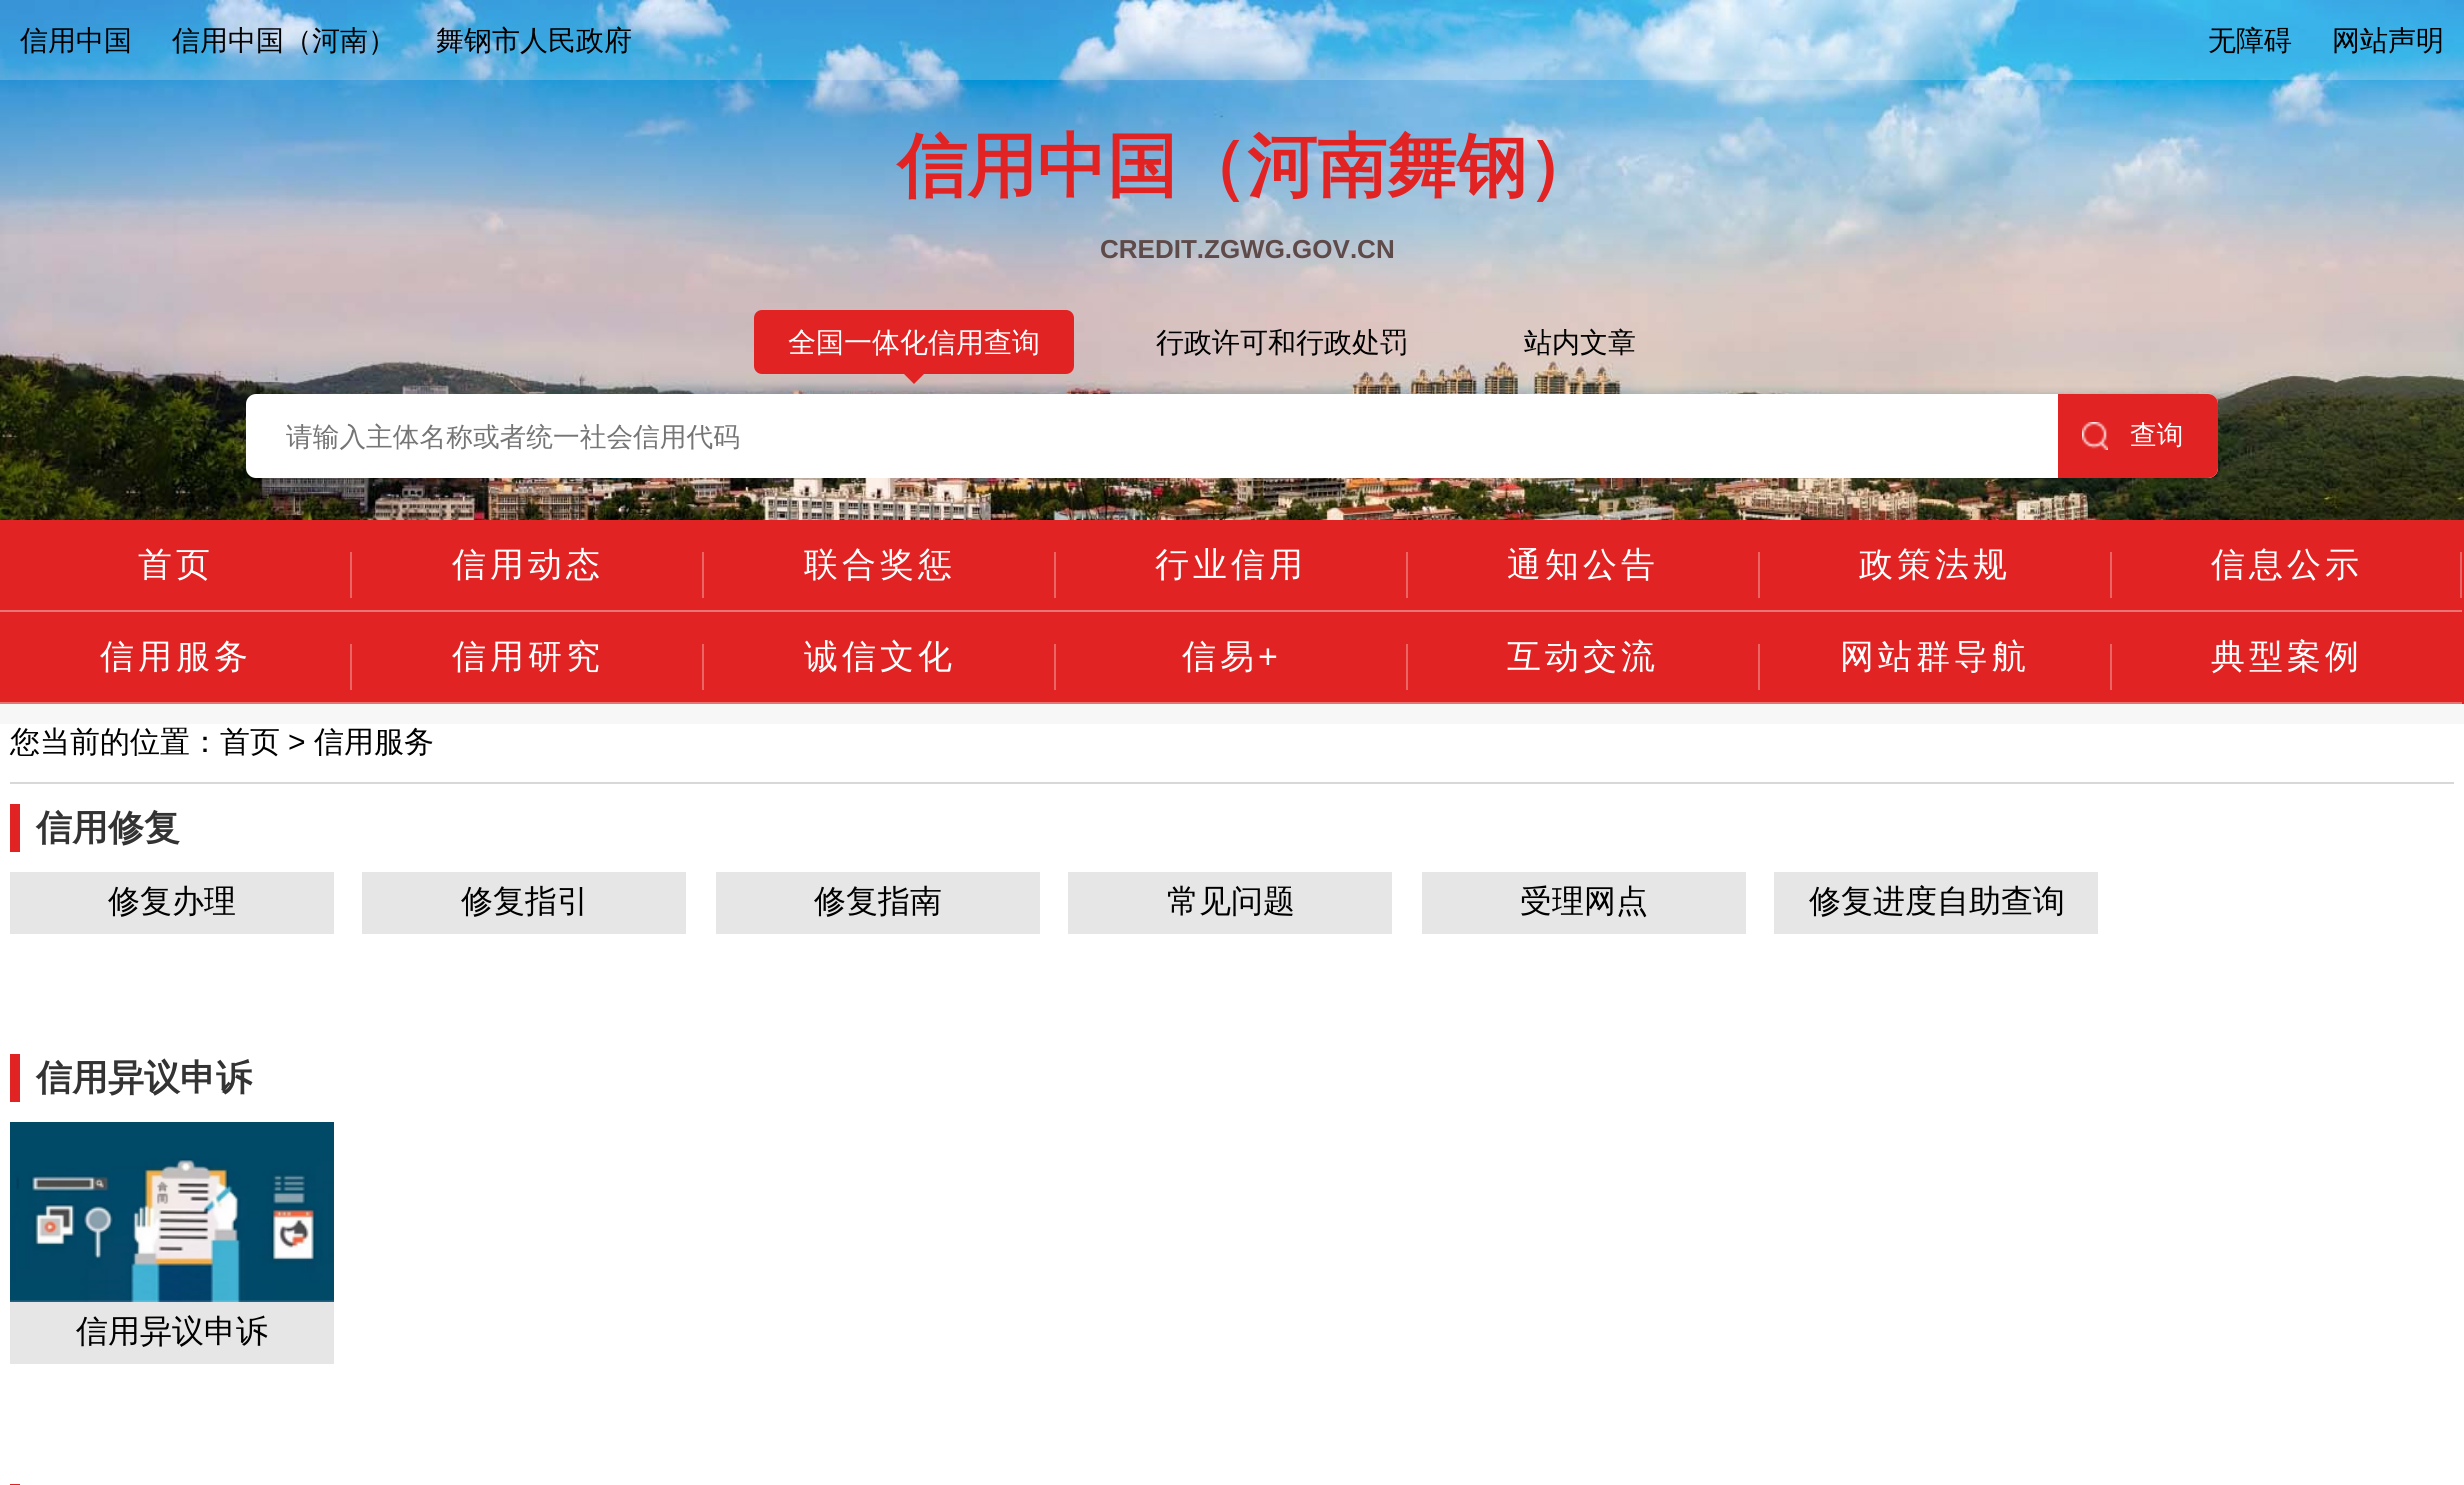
import math
import cairo



def draw_spaced(context, x, y, s, letter, word):
    context.move_to(x, y)
    for ch in s:
        context.show_text(ch)
        context.rel_move_to(letter + word * (ch == ' '), 0)


def rounded_rect(context, x, y, w, h, r):
    context.new_sub_path()
    for i, (u, v) in enumerate([(x + w - r, y + h - r), (x + r, y + h - r), (x + r, y + r), (x + w - r, y + r)]):
        context.arc(u, v, r, i * math.pi / 2, (i + 1) * math.pi / 2)
    context.close_path()


def draw_image(context, path, x, y, w, h):
    context.save()
    context.set_source_surface(cairo.ImageSurface.create_from_png(path), x, y)
    context.rectangle(x, y, w, h)
    context.fill()
    context.restore()


def draw(context):
    context.set_source_rgb(247 / 255, 247 / 255, 247 / 255)
    context.paint()
    draw_image(context, "images/1.png", 0, 0, 2464, 520)
    context.set_source_rgba(1, 1, 1, 0.22)
    context.rectangle(0, 0, 2464, 80)
    context.fill()
    context.set_source_rgb(226 / 255, 35 / 255, 35 / 255)
    rounded_rect(context, 754, 310, 320, 64, 8)
    context.fill()
    context.new_path()
    context.move_to(904, 374)
    context.line_to(924, 374)
    context.line_to(914, 384)
    context.close_path()
    context.fill()
    context.set_source_rgb(1, 1, 1)
    rounded_rect(context, 246, 394, 1972, 84, 10)
    context.fill()
    context.set_source_rgb(226 / 255, 35 / 255, 35 / 255)
    context.new_path()
    context.move_to(2058, 394)
    context.line_to(2208, 394)
    context.curve_to(2213.5, 394, 2218, 398.5, 2218, 404)
    context.line_to(2218, 468)
    context.curve_to(2218, 473.5, 2213.5, 478, 2208, 478)
    context.line_to(2058, 478)
    context.close_path()
    context.fill()
    draw_image(context, "images/2.png", 2082, 422, 26, 28)
    context.rectangle(0, 520, 2464, 184)
    context.fill()
    context.set_source_rgb(232 / 255, 116 / 255, 117 / 255)
    context.rectangle(0, 610, 2462, 2)
    context.fill()
    context.set_source_rgb(235 / 255, 101 / 255, 101 / 255)
    context.rectangle(350, 552, 2, 46)
    context.fill()
    context.rectangle(702, 552, 2, 46)
    context.fill()
    context.rectangle(1054, 552, 2, 46)
    context.fill()
    context.rectangle(1406, 552, 2, 46)
    context.fill()
    context.rectangle(1758, 552, 2, 46)
    context.fill()
    context.rectangle(2110, 552, 2, 46)
    context.fill()
    context.rectangle(2460, 552, 2, 46)
    context.fill()
    context.set_source_rgb(232 / 255, 116 / 255, 117 / 255)
    context.rectangle(0, 702, 2462, 2)
    context.fill()
    context.set_source_rgb(235 / 255, 101 / 255, 101 / 255)
    context.rectangle(350, 644, 2, 46)
    context.fill()
    context.rectangle(702, 644, 2, 46)
    context.fill()
    context.rectangle(1054, 644, 2, 46)
    context.fill()
    context.rectangle(1406, 644, 2, 46)
    context.fill()
    context.rectangle(1758, 644, 2, 46)
    context.fill()
    context.rectangle(2110, 644, 2, 46)
    context.fill()
    context.set_source_rgb(1, 1, 1)
    context.rectangle(0, 724, 2464, 761)
    context.fill()
    context.set_source_rgb(216 / 255, 216 / 255, 216 / 255)
    context.rectangle(10, 782, 2444, 2)
    context.fill()
    context.set_source_rgb(226 / 255, 35 / 255, 35 / 255)
    context.rectangle(10, 804, 10, 48)
    context.fill()
    context.set_source_rgb(230 / 255, 230 / 255, 230 / 255)
    context.rectangle(10, 872, 324, 62)
    context.fill()
    context.rectangle(362, 872, 324, 62)
    context.fill()
    context.rectangle(716, 872, 324, 62)
    context.fill()
    context.rectangle(1068, 872, 324, 62)
    context.fill()
    context.rectangle(1422, 872, 324, 62)
    context.fill()
    context.rectangle(1774, 872, 324, 62)
    context.fill()
    context.set_source_rgb(226 / 255, 35 / 255, 35 / 255)
    context.rectangle(10, 1054, 10, 48)
    context.fill()
    draw_image(context, "images/3.png", 10, 1122, 324, 180)
    context.set_source_rgb(230 / 255, 230 / 255, 230 / 255)
    context.rectangle(10, 1302, 324, 62)
    context.fill()
    context.set_source_rgb(226 / 255, 35 / 255, 35 / 255)
    context.rectangle(10, 1484, 10, 1)
    context.fill()
    context.select_font_face("WenQuanYi Zen Hei Medium")
    context.set_font_size(28)
    context.set_source_rgb(0, 0, 0)
    context.move_to(20, 50)
    context.show_text("信用中国")
    context.move_to(172, 50)
    context.show_text("信用中国（河南）")
    context.move_to(436, 50)
    context.show_text("舞钢市人民政府")
    context.move_to(2208, 50)
    context.show_text("无障碍")
    context.move_to(2332, 50)
    context.show_text("网站声明")
    context.select_font_face("WenQuanYi Zen Hei", cairo.FontSlant.NORMAL, cairo.FontWeight.BOLD)
    context.set_font_size(70)
    context.set_source_rgb(226 / 255, 35 / 255, 35 / 255)
    context.move_to(897, 190)
    context.show_text("信用中国（河南舞钢）")
    context.select_font_face("Liberation Sans", cairo.FontSlant.NORMAL, cairo.FontWeight.BOLD)
    context.set_font_size(26)
    context.set_source_rgb(95 / 255, 74 / 255, 74 / 255)
    context.move_to(1100, 258)
    context.show_text("CREDIT.ZGWG.GOV.CN")
    context.select_font_face("WenQuanYi Zen Hei Medium")
    context.set_font_size(28)
    context.set_source_rgb(1, 1, 1)
    context.move_to(788, 352)
    context.show_text("全国一体化信用查询")
    context.set_source_rgb(0, 0, 0)
    context.move_to(1156, 352)
    context.show_text("行政许可和行政处罚")
    context.move_to(1524, 352)
    context.show_text("站内文章")
    context.set_font_size(26.7)
    context.set_source_rgb(117 / 255, 117 / 255, 117 / 255)
    context.move_to(286, 446)
    context.show_text("请输入主体名称或者统一社会信用代码")
    context.set_source_rgb(1, 1, 1)
    context.move_to(2130, 444)
    context.show_text("查询")
    context.set_font_size(34)
    draw_spaced(context, 138, 576, "首页", 4, 0)
    draw_spaced(context, 452, 576, "信用动态", 4, 0)
    draw_spaced(context, 804, 576, "联合奖惩", 4, 0)
    draw_spaced(context, 1155, 576, "行业信用", 4, 0)
    draw_spaced(context, 1507, 576, "通知公告", 4, 0)
    draw_spaced(context, 1859, 576, "政策法规", 4, 0)
    draw_spaced(context, 2211, 576, "信息公示", 4, 0)
    draw_spaced(context, 100, 668, "信用服务", 4, 0)
    draw_spaced(context, 452, 668, "信用研究", 4, 0)
    draw_spaced(context, 804, 668, "诚信文化", 4, 0)
    draw_spaced(context, 1182, 668, "信易", 4, 0)
    context.select_font_face("Liberation Sans")
    draw_spaced(context, 1258, 668, "+", 4, 0)
    context.select_font_face("WenQuanYi Zen Hei Medium")
    draw_spaced(context, 1507, 668, "互动交流", 4, 0)
    draw_spaced(context, 1840, 668, "网站群导航", 4, 0)
    draw_spaced(context, 2211, 668, "典型案例", 4, 0)
    context.set_font_size(30)
    context.set_source_rgb(0, 0, 0)
    context.move_to(10, 752)
    context.show_text("您当前的位置：首页")
    context.select_font_face("Liberation Sans")
    context.move_to(288, 752)
    context.show_text(">")
    context.select_font_face("WenQuanYi Zen Hei Medium")
    context.move_to(314, 752)
    context.show_text("信用服务")
    context.select_font_face("WenQuanYi Zen Hei", cairo.FontSlant.NORMAL, cairo.FontWeight.BOLD)
    context.set_font_size(36)
    context.set_source_rgb(51 / 255, 51 / 255, 51 / 255)
    context.move_to(36, 840)
    context.show_text("信用修复")
    context.select_font_face("WenQuanYi Zen Hei Medium")
    context.set_font_size(32)
    context.set_source_rgb(0, 0, 0)
    context.move_to(108, 912)
    context.show_text("修复办理")
    context.move_to(461, 912)
    context.show_text("修复指引")
    context.move_to(814, 912)
    context.show_text("修复指南")
    context.move_to(1167, 912)
    context.show_text("常见问题")
    context.move_to(1520, 912)
    context.show_text("受理网点")
    context.move_to(1809, 912)
    context.show_text("修复进度自助查询")
    context.select_font_face("WenQuanYi Zen Hei", cairo.FontSlant.NORMAL, cairo.FontWeight.BOLD)
    context.set_font_size(36)
    context.set_source_rgb(51 / 255, 51 / 255, 51 / 255)
    context.move_to(36, 1090)
    context.show_text("信用异议申诉")
    context.select_font_face("WenQuanYi Zen Hei Medium")
    context.set_font_size(32)
    context.set_source_rgb(0, 0, 0)
    context.move_to(76, 1342)
    context.show_text("信用异议申诉")


surface = cairo.ImageSurface(cairo.Format.RGB24, 2464, 1485)
context = cairo.Context(surface)
options = cairo.FontOptions()
options.set_hint_metrics(cairo.HintMetrics.OFF)
options.set_hint_style(cairo.HintStyle.NONE)
context.set_font_options(options)
context.set_miter_limit(4)
draw(context)
surface.write_to_png("out.png")
